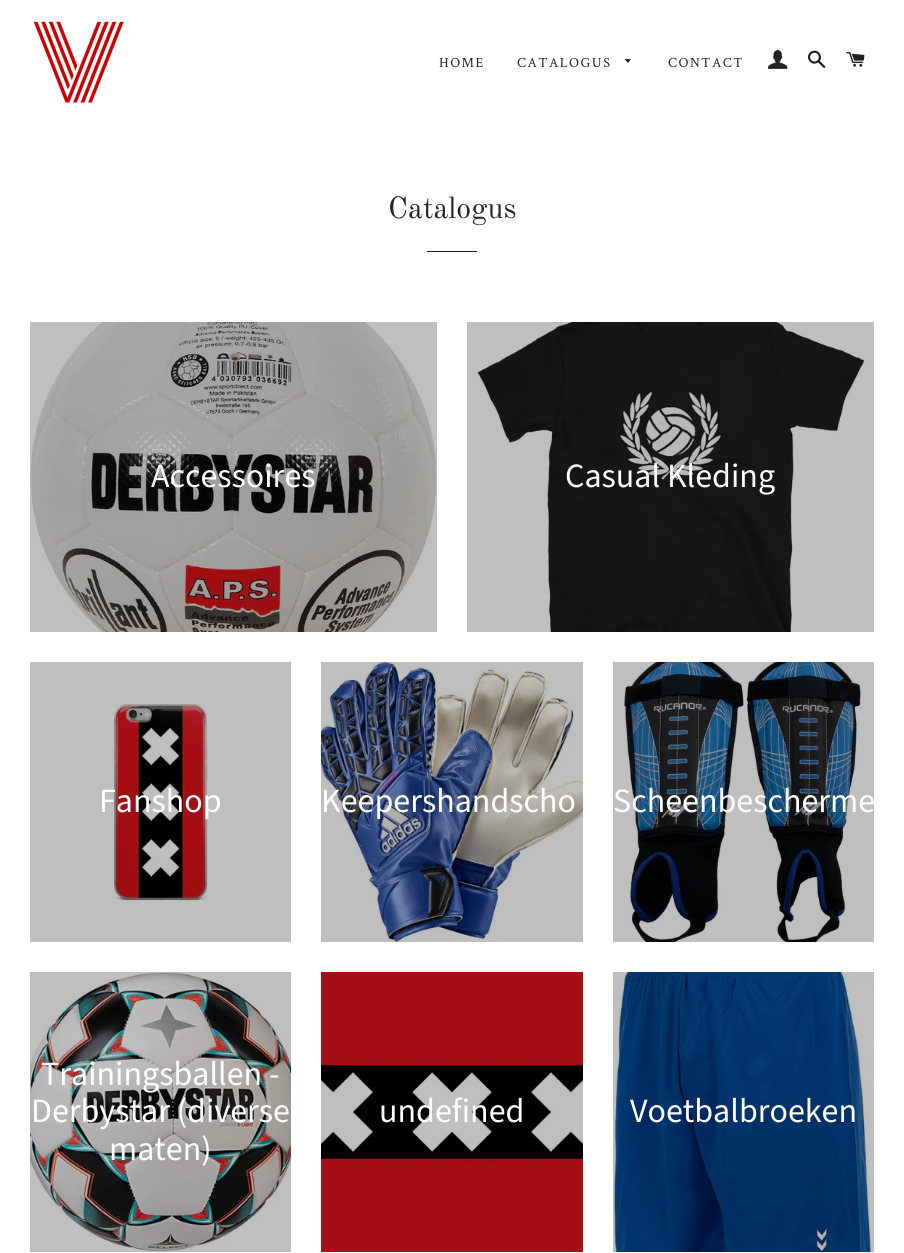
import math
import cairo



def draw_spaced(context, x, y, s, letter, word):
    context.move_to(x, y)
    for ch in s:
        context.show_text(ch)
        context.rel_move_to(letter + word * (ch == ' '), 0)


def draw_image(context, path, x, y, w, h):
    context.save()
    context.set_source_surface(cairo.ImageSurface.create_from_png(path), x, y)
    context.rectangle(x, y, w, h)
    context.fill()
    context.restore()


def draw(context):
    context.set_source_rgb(1, 1, 1)
    context.paint()
    context.set_source_rgb(191 / 255, 191 / 255, 191 / 255)
    context.rectangle(613, 662, 261, 280)
    context.fill()
    context.rectangle(30, 662, 261, 280)
    context.fill()
    context.rectangle(467, 322, 407, 310)
    context.fill()
    draw_image(context, "images/1.png", 33, 21, 91, 82)
    context.set_source_rgb(34 / 255, 35 / 255, 35 / 255)
    context.new_path()
    context.move_to(624.5, 59)
    context.line_to(628, 63)
    context.line_to(631, 59)
    context.close_path()
    context.fill()
    draw_image(context, "images/2.png", 768, 49, 20, 20)
    draw_image(context, "images/3.png", 808, 50, 18, 18)
    draw_image(context, "images/4.png", 846, 52, 19, 15)
    context.set_source_rgb(28 / 255, 29 / 255, 29 / 255)
    context.rectangle(427, 251, 50, 1)
    context.fill()
    draw_image(context, "images/5.png", 30, 322, 407, 310)
    draw_image(context, "images/6.png", 477, 322, 388, 310)
    draw_image(context, "images/7.png", 113, 704, 95, 197)
    draw_image(context, "images/8.png", 321, 662, 262, 280)
    draw_image(context, "images/9.png", 624, 662, 237, 280)
    draw_image(context, "images/10.png", 30, 972, 261, 280)
    draw_image(context, "images/11.png", 321, 972, 262, 280)
    draw_image(context, "images/12.png", 613, 972, 261, 280)
    context.select_font_face("Crimson Text")
    context.set_font_size(14)
    context.set_source_rgb(34 / 255, 35 / 255, 35 / 255)
    draw_spaced(context, 439, 67, "HOME", 1.5, 0)
    draw_spaced(context, 517, 67, "CATALOGUS", 1.5, 0)
    draw_spaced(context, 668, 67, "CONTACT", 1.5, 0)
    context.select_font_face("Old Standard TT")
    context.set_font_size(30)
    context.move_to(388, 218)
    context.show_text("Catalogus")
    context.select_font_face("Source Sans Pro")
    context.set_font_size(34)
    context.set_source_rgb(1, 1, 1)
    context.move_to(151, 487)
    context.show_text("Accessoires")
    context.move_to(565, 487)
    context.show_text("Casual Kleding")
    context.move_to(99, 812)
    context.show_text("Fanshop")
    context.move_to(321, 812)
    context.show_text("Keepershandscho")
    context.move_to(613, 812)
    context.show_text("Scheenbescherme")
    context.move_to(41, 1085)
    context.show_text("Trainingsballen -")
    context.move_to(31, 1122)
    context.show_text("Derbystar (diverse")
    context.move_to(109, 1160)
    context.show_text("maten)")
    context.move_to(379, 1122)
    context.show_text("undefined")
    context.move_to(630, 1122)
    context.show_text("Voetbalbroeken")


surface = cairo.ImageSurface(cairo.Format.RGB24, 904, 1253)
context = cairo.Context(surface)
options = cairo.FontOptions()
options.set_hint_metrics(cairo.HintMetrics.OFF)
options.set_hint_style(cairo.HintStyle.NONE)
context.set_font_options(options)
context.set_miter_limit(4)
draw(context)
surface.write_to_png("out.png")
